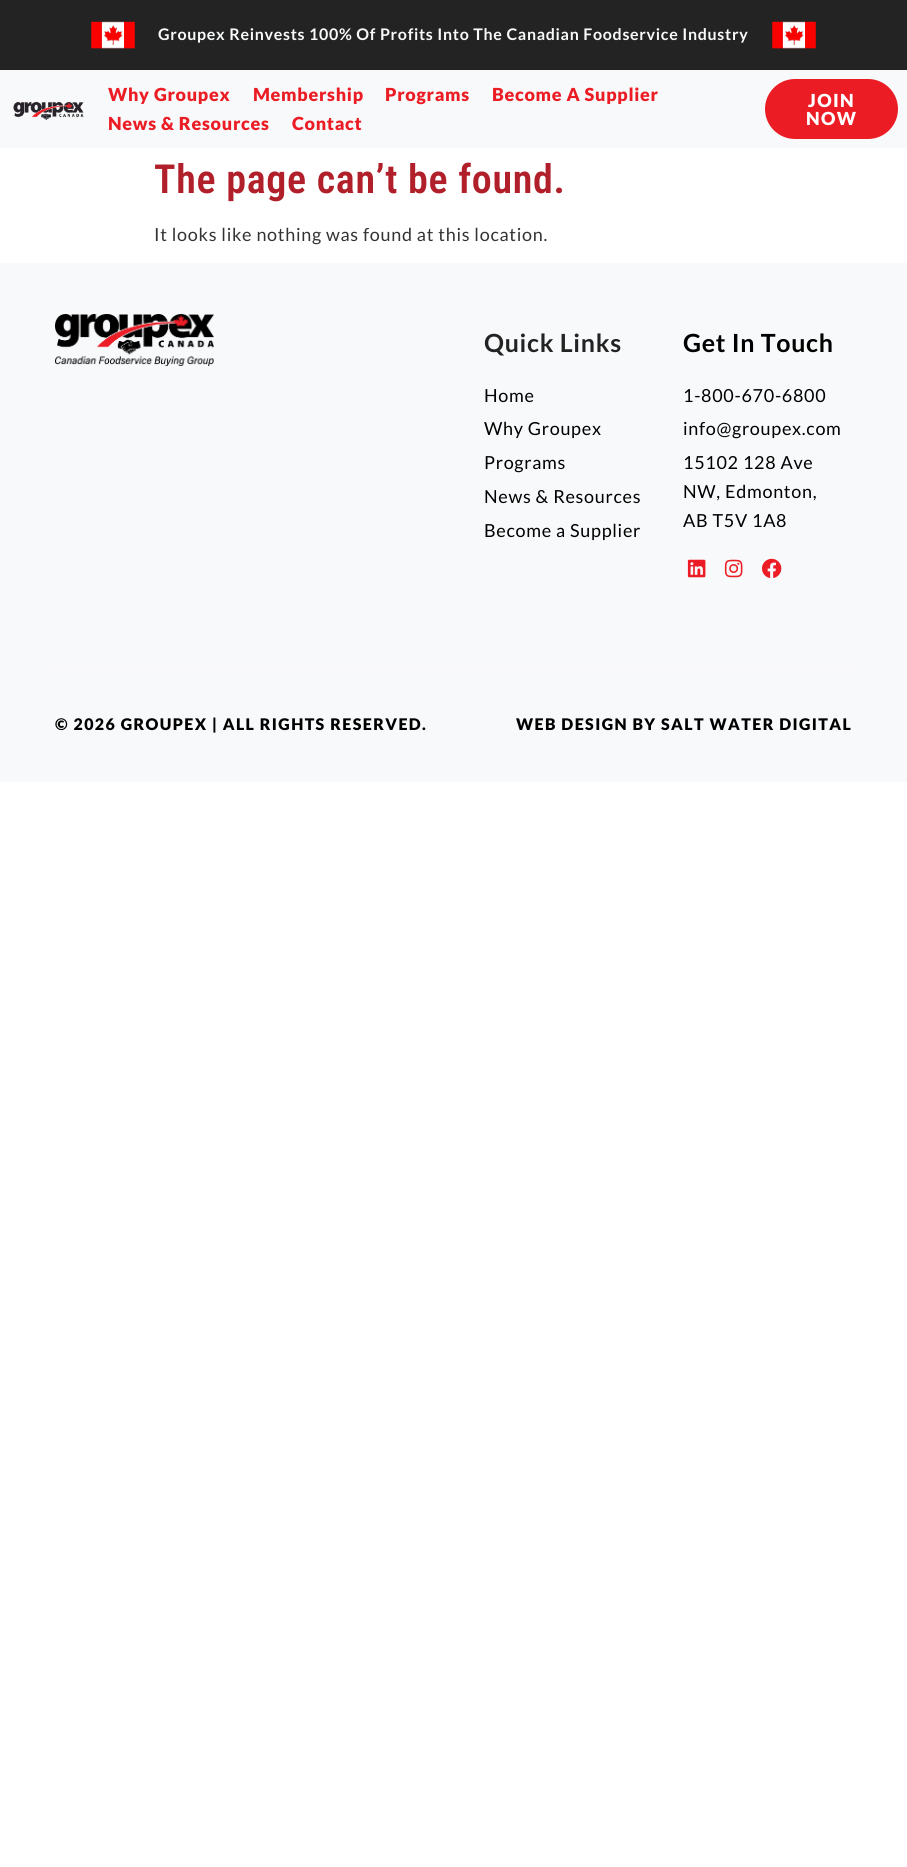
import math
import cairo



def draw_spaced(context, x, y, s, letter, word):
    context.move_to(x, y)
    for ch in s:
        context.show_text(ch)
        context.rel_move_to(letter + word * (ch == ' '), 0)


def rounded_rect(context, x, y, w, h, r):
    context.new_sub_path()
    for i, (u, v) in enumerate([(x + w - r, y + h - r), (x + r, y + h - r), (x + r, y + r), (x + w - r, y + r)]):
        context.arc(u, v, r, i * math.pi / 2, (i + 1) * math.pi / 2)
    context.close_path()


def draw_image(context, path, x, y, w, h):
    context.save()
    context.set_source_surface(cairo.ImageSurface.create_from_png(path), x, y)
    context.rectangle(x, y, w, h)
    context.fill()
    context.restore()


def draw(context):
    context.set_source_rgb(1, 1, 1)
    context.paint()
    context.set_source_rgb(35 / 255, 35 / 255, 35 / 255)
    context.rectangle(0, 0, 907, 70)
    context.fill()
    draw_image(context, "images/1.png", 91, 21, 44, 28)
    draw_image(context, "images/1.png", 772, 21, 44, 28)
    context.set_source_rgb(248 / 255, 249 / 255, 250 / 255)
    context.rectangle(0, 70, 907, 78)
    context.fill()
    draw_image(context, "images/2.png", 13, 101, 71, 20)
    context.set_source_rgb(235 / 255, 28 / 255, 36 / 255)
    rounded_rect(context, 765, 79, 133, 60, 30)
    context.fill()
    context.set_source_rgb(248 / 255, 249 / 255, 250 / 255)
    context.rectangle(0, 263, 907, 519)
    context.fill()
    context.set_source_rgb(252 / 255, 244 / 255, 245 / 255)
    context.rectangle(45, 669, 817, 1)
    context.fill()
    draw_image(context, "images/3.png", 55, 314, 159, 52)
    draw_image(context, "images/4.png", 687, 559, 19, 19)
    draw_image(context, "images/5.png", 724, 559, 19, 19)
    draw_image(context, "images/6.png", 762, 558, 20, 20)
    context.select_font_face("Lato", cairo.FontSlant.NORMAL, cairo.FontWeight.BOLD)
    context.set_font_size(16)
    context.set_source_rgb(248 / 255, 249 / 255, 250 / 255)
    draw_spaced(context, 158, 40, "Groupex Reinvests 100% Of Profits Into The Canadian Foodservice Industry", 0.7, 0)
    context.select_font_face("Lato Black")
    context.set_font_size(18)
    context.set_source_rgb(235 / 255, 28 / 255, 36 / 255)
    draw_spaced(context, 108, 101, "Why Groupex", 0.7, 0)
    draw_spaced(context, 253, 101, "Membership", 0.7, 0)
    draw_spaced(context, 385, 101, "Programs", 0.7, 0)
    draw_spaced(context, 492, 101, "Become A Supplier", 0.7, 0)
    draw_spaced(context, 108, 130, "News & Resources", 0.7, 0)
    draw_spaced(context, 292, 130, "Contact", 0.7, 0)
    context.set_source_rgb(1, 1, 1)
    draw_spaced(context, 808, 107, "JOIN", 1.4, 0)
    draw_spaced(context, 806, 125, "NOW", 1.4, 0)
    context.select_font_face("Roboto Condensed SemiBold")
    context.set_font_size(40)
    context.set_source_rgb(176 / 255, 31 / 255, 42 / 255)
    draw_spaced(context, 154, 193, "The page can’t be found.", 0.7, 0)
    context.select_font_face("Lato")
    context.set_font_size(18)
    context.set_source_rgb(51 / 255, 51 / 255, 51 / 255)
    draw_spaced(context, 154, 241, "It looks like nothing was found at this location.", 0.7, 0)
    context.select_font_face("Lato", cairo.FontSlant.NORMAL, cairo.FontWeight.BOLD)
    context.set_font_size(25)
    context.set_source_rgb(35 / 255, 35 / 255, 35 / 255)
    draw_spaced(context, 484, 352, "Quick Links", 0.7, 0)
    context.select_font_face("Lato")
    context.set_font_size(18)
    context.set_source_rgb(0, 0, 0)
    draw_spaced(context, 484, 402, "Home", 0.7, 0)
    draw_spaced(context, 484, 435, "Why Groupex", 0.7, 0)
    draw_spaced(context, 484, 469, "Programs", 0.7, 0)
    draw_spaced(context, 484, 503, "News & Resources", 0.7, 0)
    draw_spaced(context, 484, 537, "Become a Supplier", 0.7, 0)
    context.select_font_face("Lato", cairo.FontSlant.NORMAL, cairo.FontWeight.BOLD)
    context.set_font_size(25)
    draw_spaced(context, 683, 352, "Get In Touch", 0.7, 0)
    context.select_font_face("Lato")
    context.set_font_size(18)
    draw_spaced(context, 683, 402, "1-800-670-6800", 0.7, 0)
    draw_spaced(context, 683, 435, "info@groupex.com", 0.7, 0)
    draw_spaced(context, 683, 469, "15102 128 Ave", 0.7, 0)
    draw_spaced(context, 683, 498, "NW, Edmonton,", 0.7, 0)
    draw_spaced(context, 683, 527, "AB T5V 1A8", 0.7, 0)
    context.select_font_face("Lato Black")
    context.set_font_size(16)
    draw_spaced(context, 55, 730, "© 2026 GROUPEX | ALL RIGHTS RESERVED.", 1.4, 0)
    draw_spaced(context, 516, 730, "WEB DESIGN BY SALT WATER DIGITAL", 1.4, 0)


surface = cairo.ImageSurface(cairo.Format.RGB24, 907, 1867)
context = cairo.Context(surface)
options = cairo.FontOptions()
options.set_hint_metrics(cairo.HintMetrics.OFF)
options.set_hint_style(cairo.HintStyle.NONE)
context.set_font_options(options)
context.set_miter_limit(4)
draw(context)
surface.write_to_png("out.png")
